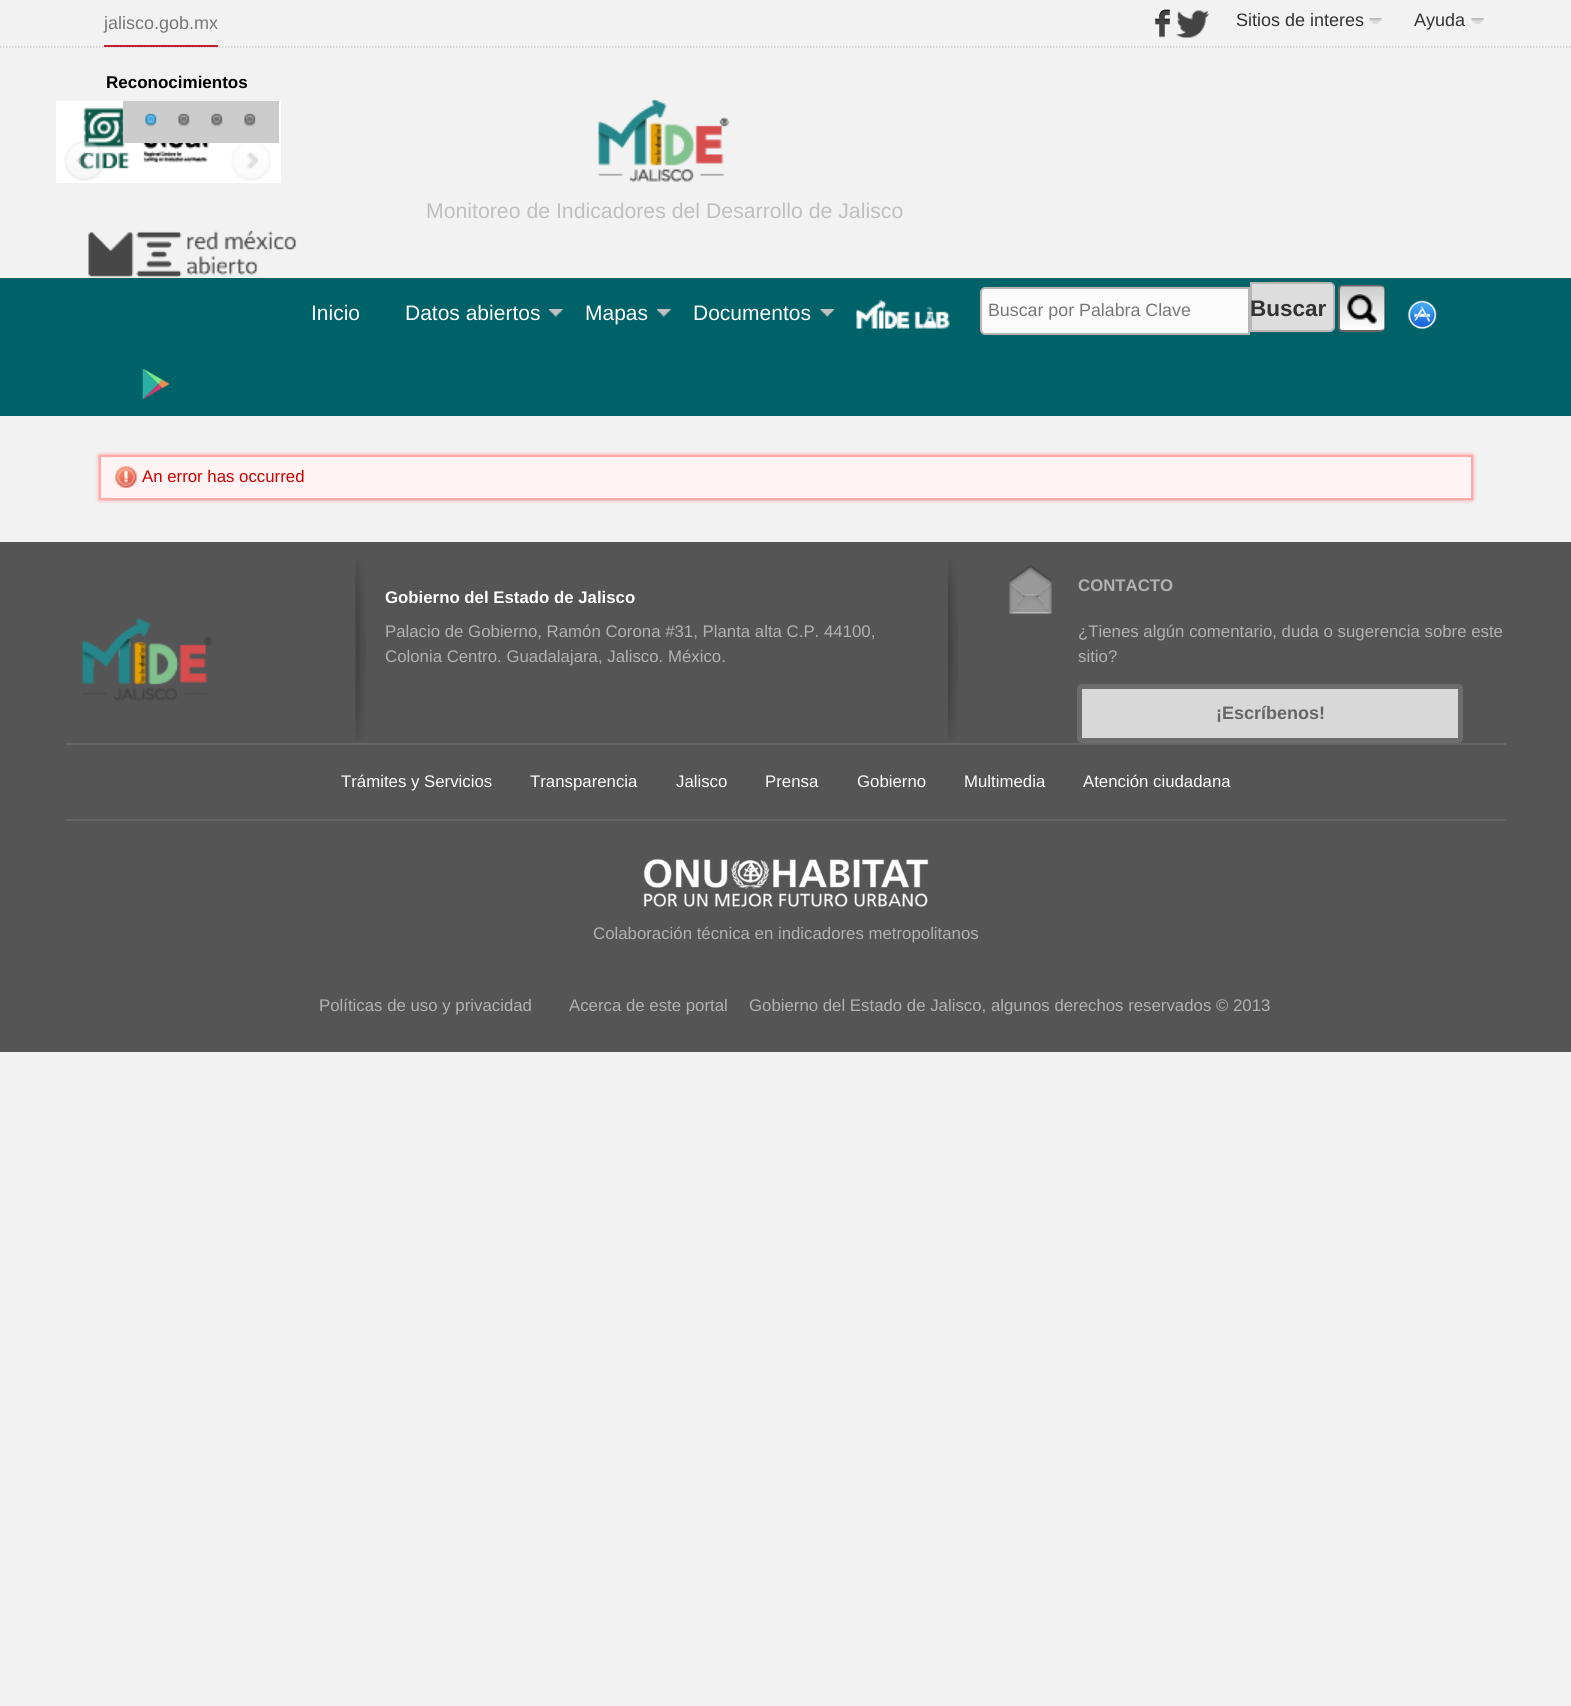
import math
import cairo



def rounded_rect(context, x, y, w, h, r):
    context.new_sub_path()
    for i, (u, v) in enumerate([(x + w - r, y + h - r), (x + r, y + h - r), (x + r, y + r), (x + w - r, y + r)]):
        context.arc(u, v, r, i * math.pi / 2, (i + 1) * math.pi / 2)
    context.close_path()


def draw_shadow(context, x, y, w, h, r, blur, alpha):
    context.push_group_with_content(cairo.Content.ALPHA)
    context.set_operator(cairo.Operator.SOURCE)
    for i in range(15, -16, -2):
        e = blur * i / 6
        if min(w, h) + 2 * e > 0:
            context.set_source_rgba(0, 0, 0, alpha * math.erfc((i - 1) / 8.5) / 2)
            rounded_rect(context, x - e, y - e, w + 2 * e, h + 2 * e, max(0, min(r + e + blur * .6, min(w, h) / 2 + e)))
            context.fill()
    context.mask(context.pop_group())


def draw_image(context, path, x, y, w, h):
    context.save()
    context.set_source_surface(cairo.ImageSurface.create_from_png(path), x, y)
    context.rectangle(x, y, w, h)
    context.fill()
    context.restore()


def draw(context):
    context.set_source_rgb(242 / 255, 242 / 255, 242 / 255)
    context.paint()
    context.new_path()
    context.move_to(0, 47)
    context.line_to(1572, 47)
    context.set_source_rgb(204 / 255, 204 / 255, 204 / 255)
    context.set_line_width(1.5)
    context.set_dash([1.5, 1.5])
    context.stroke()
    context.set_source_rgb(193 / 255, 30 / 255, 46 / 255)
    context.rectangle(104, 45, 114, 2)
    context.fill()
    draw_image(context, "images/1.png", 1155, 9, 15, 29)
    draw_image(context, "images/2.png", 1176, 10, 33, 28)
    draw_image(context, "images/3.png", 1369, 18, 13, 6)
    draw_image(context, "images/3.png", 1471, 18, 13, 6)
    context.set_source_rgb(1, 1, 1)
    context.rectangle(56, 101, 225, 82)
    context.fill()
    draw_image(context, "images/4.png", 79, 107, 130, 63)
    context.set_source_rgb(204 / 255, 204 / 255, 204 / 255)
    context.rectangle(123, 101, 156, 42)
    context.fill()
    draw_image(context, "images/5.png", 145, 113, 12, 14)
    draw_image(context, "images/6.png", 178, 113, 12, 14)
    draw_image(context, "images/6.png", 211, 113, 12, 14)
    draw_image(context, "images/6.png", 244, 113, 12, 14)
    draw_image(context, "images/7.png", 64, 140, 41, 41)
    draw_image(context, "images/8.png", 231, 142, 40, 39)
    draw_image(context, "images/9.png", 88, 230, 209, 48)
    draw_image(context, "images/10.png", 598, 98, 132, 84)
    context.set_source_rgb(0, 98 / 255, 105 / 255)
    context.rectangle(0, 278, 1571, 138)
    context.fill()
    draw_image(context, "images/11.png", 549, 309, 14, 8)
    draw_image(context, "images/11.png", 657, 309, 14, 8)
    draw_image(context, "images/12.png", 820, 309, 14, 8)
    draw_image(context, "images/13.png", 856, 300, 94, 29)
    context.set_source_rgb(252 / 255, 252 / 255, 252 / 255)
    context.new_path()
    context.move_to(985, 288)
    context.line_to(1249, 288)
    context.line_to(1249, 334)
    context.line_to(985, 334)
    context.curve_to(983, 334, 981, 332, 981, 330)
    context.line_to(981, 292)
    context.curve_to(981, 290, 983, 288, 985, 288)
    context.close_path()
    context.fill_preserve()
    context.set_source_rgb(181 / 255, 181 / 255, 181 / 255)
    context.set_line_width(2)
    context.set_dash([])
    context.stroke()
    context.set_source_rgb(221 / 255, 221 / 255, 221 / 255)
    context.new_path()
    context.move_to(1251, 283)
    context.line_to(1330, 283)
    context.curve_to(1332, 283, 1334, 285, 1334, 287)
    context.line_to(1334, 327)
    context.curve_to(1334, 329, 1332, 331, 1330, 331)
    context.line_to(1251, 331)
    context.close_path()
    context.fill_preserve()
    context.set_source_rgb(181 / 255, 181 / 255, 181 / 255)
    context.stroke()
    context.set_source_rgb(102 / 255, 102 / 255, 102 / 255)
    rounded_rect(context, 1338, 285, 47, 47, 5)
    context.fill()
    draw_image(context, "images/14.png", 1339, 286, 46, 44)
    context.set_fill_rule(cairo.FillRule.EVEN_ODD)
    context.new_path()
    context.move_to(1342, 285)
    context.line_to(1380, 285)
    context.curve_to(1382, 285, 1384, 287, 1384, 290)
    context.line_to(1384, 327)
    context.curve_to(1384, 329, 1382, 332, 1380, 332)
    context.line_to(1342, 332)
    context.curve_to(1340, 332, 1338, 329, 1338, 327)
    context.line_to(1338, 290)
    context.curve_to(1338, 287, 1340, 285, 1342, 285)
    context.close_path()
    context.move_to(1342, 286)
    context.line_to(1380, 286)
    context.curve_to(1382, 286, 1384, 288, 1384, 290)
    context.line_to(1384, 327)
    context.curve_to(1384, 329, 1382, 330, 1380, 330)
    context.line_to(1342, 330)
    context.curve_to(1341, 330, 1340, 329, 1340, 327)
    context.line_to(1340, 290)
    context.curve_to(1340, 288, 1341, 286, 1342, 286)
    context.close_path()
    context.fill()
    draw_image(context, "images/15.png", 1407, 300, 30, 30)
    draw_image(context, "images/16.png", 142, 369, 28, 30)
    context.set_source_rgb(1, 136 / 255, 136 / 255)
    draw_shadow(context, 99, 455, 1374, 45, 0, 2, 1)
    context.set_source_rgb(1, 243 / 255, 243 / 255)
    context.rectangle(100, 456, 1372, 43)
    context.fill_preserve()
    context.set_source_rgb(1, 170 / 255, 170 / 255)
    context.stroke()
    draw_image(context, "images/17.png", 115, 466, 22, 22)
    context.set_source_rgb(85 / 255, 85 / 255, 85 / 255)
    context.rectangle(0, 542, 1571, 510)
    context.fill()
    draw_image(context, "images/18.png", 82, 618, 131, 83)
    draw_image(context, "images/19.png", 355, 559, 11, 180)
    draw_image(context, "images/20.png", 948, 559, 10, 180)
    draw_image(context, "images/21.png", 1009, 565, 43, 49)
    context.set_source_rgb(216 / 255, 216 / 255, 216 / 255)
    rounded_rect(context, 1079.5, 686.5, 381, 54, 2.5)
    context.fill_preserve()
    context.set_source_rgb(109 / 255, 109 / 255, 109 / 255)
    context.set_line_width(5)
    context.stroke()
    context.set_source_rgb(102 / 255, 102 / 255, 102 / 255)
    context.rectangle(66, 743, 1440, 2)
    context.fill()
    context.rectangle(66, 819, 1440, 2)
    context.fill()
    draw_image(context, "images/22.png", 643, 858, 286, 49)
    context.select_font_face("Liberation Sans")
    context.set_font_size(18)
    context.set_source_rgb(119 / 255, 119 / 255, 119 / 255)
    context.move_to(104, 29)
    context.show_text("jalisco.gob.mx")
    context.set_source_rgb(51 / 255, 51 / 255, 51 / 255)
    context.move_to(1236, 26)
    context.show_text("Sitios de interes")
    context.move_to(1414, 26)
    context.show_text("Ayuda")
    context.select_font_face("Liberation Sans", cairo.FontSlant.NORMAL, cairo.FontWeight.BOLD)
    context.set_font_size(17)
    context.set_source_rgb(0, 0, 0)
    context.move_to(106, 88)
    context.show_text("Reconocimientos")
    context.select_font_face("Liberation Sans")
    context.set_font_size(21.25)
    context.set_source_rgb(191 / 255, 191 / 255, 191 / 255)
    context.move_to(426, 218)
    context.show_text("Monitoreo de Indicadores del Desarrollo de Jalisco")
    context.set_font_size(21)
    context.set_source_rgb(253 / 255, 253 / 255, 253 / 255)
    context.move_to(311, 320)
    context.show_text("Inicio")
    context.move_to(405, 320)
    context.show_text("Datos abiertos")
    context.move_to(585, 320)
    context.show_text("Mapas")
    context.move_to(693, 320)
    context.show_text("Documentos")
    context.set_font_size(17.8)
    context.set_source_rgb(119 / 255, 119 / 255, 119 / 255)
    context.move_to(988, 316)
    context.show_text("Buscar por Palabra Clave")
    context.select_font_face("Liberation Sans", cairo.FontSlant.NORMAL, cairo.FontWeight.BOLD)
    context.set_font_size(22.5)
    context.set_source_rgb(51 / 255, 51 / 255, 51 / 255)
    context.move_to(1250, 316)
    context.show_text("Buscar")
    context.select_font_face("Liberation Sans")
    context.set_font_size(16.8)
    context.set_source_rgb(204 / 255, 0, 0)
    context.move_to(142, 482)
    context.show_text("An error has occurred")
    context.select_font_face("Liberation Sans", cairo.FontSlant.NORMAL, cairo.FontWeight.BOLD)
    context.set_source_rgb(253 / 255, 253 / 255, 253 / 255)
    context.move_to(385, 603)
    context.show_text("Gobierno del Estado de Jalisco")
    context.select_font_face("Liberation Sans")
    context.set_source_rgb(178 / 255, 178 / 255, 178 / 255)
    context.move_to(385, 637)
    context.show_text("Palacio de Gobierno, Ramón Corona #31, Planta alta C.P. 44100,")
    context.move_to(385, 662)
    context.show_text("Colonia Centro. Guadalajara, Jalisco. México.")
    context.select_font_face("Liberation Sans", cairo.FontSlant.NORMAL, cairo.FontWeight.BOLD)
    context.move_to(1078, 591)
    context.show_text("CONTACTO")
    context.select_font_face("Liberation Sans")
    context.move_to(1078, 637)
    context.show_text("¿Tienes algún comentario, duda o sugerencia sobre este")
    context.move_to(1078, 662)
    context.show_text("sitio?")
    context.select_font_face("Liberation Sans", cairo.FontSlant.NORMAL, cairo.FontWeight.BOLD)
    context.set_font_size(18)
    context.set_source_rgb(102 / 255, 102 / 255, 102 / 255)
    context.move_to(1216, 719)
    context.show_text("¡Escríbenos!")
    context.select_font_face("Liberation Sans")
    context.set_font_size(16.8)
    context.set_source_rgb(253 / 255, 253 / 255, 253 / 255)
    context.move_to(341, 787)
    context.show_text("Trámites y Servicios")
    context.move_to(530, 787)
    context.show_text("Transparencia")
    context.move_to(676, 787)
    context.show_text("Jalisco")
    context.move_to(765, 787)
    context.show_text("Prensa")
    context.move_to(857, 787)
    context.show_text("Gobierno")
    context.move_to(964, 787)
    context.show_text("Multimedia")
    context.move_to(1083, 787)
    context.show_text("Atención ciudadana")
    context.set_source_rgb(178 / 255, 178 / 255, 178 / 255)
    context.move_to(593, 939)
    context.show_text("Colaboración técnica en indicadores metropolitanos")
    context.move_to(319, 1011)
    context.show_text("Políticas de uso y privacidad")
    context.move_to(569, 1011)
    context.show_text("Acerca de este portal")
    context.move_to(749, 1011)
    context.show_text("Gobierno del Estado de Jalisco, algunos derechos reservados © 2013")


surface = cairo.ImageSurface(cairo.Format.RGB24, 1571, 1706)
context = cairo.Context(surface)
options = cairo.FontOptions()
options.set_hint_metrics(cairo.HintMetrics.OFF)
options.set_hint_style(cairo.HintStyle.NONE)
context.set_font_options(options)
context.set_miter_limit(4)
draw(context)
surface.write_to_png("out.png")
